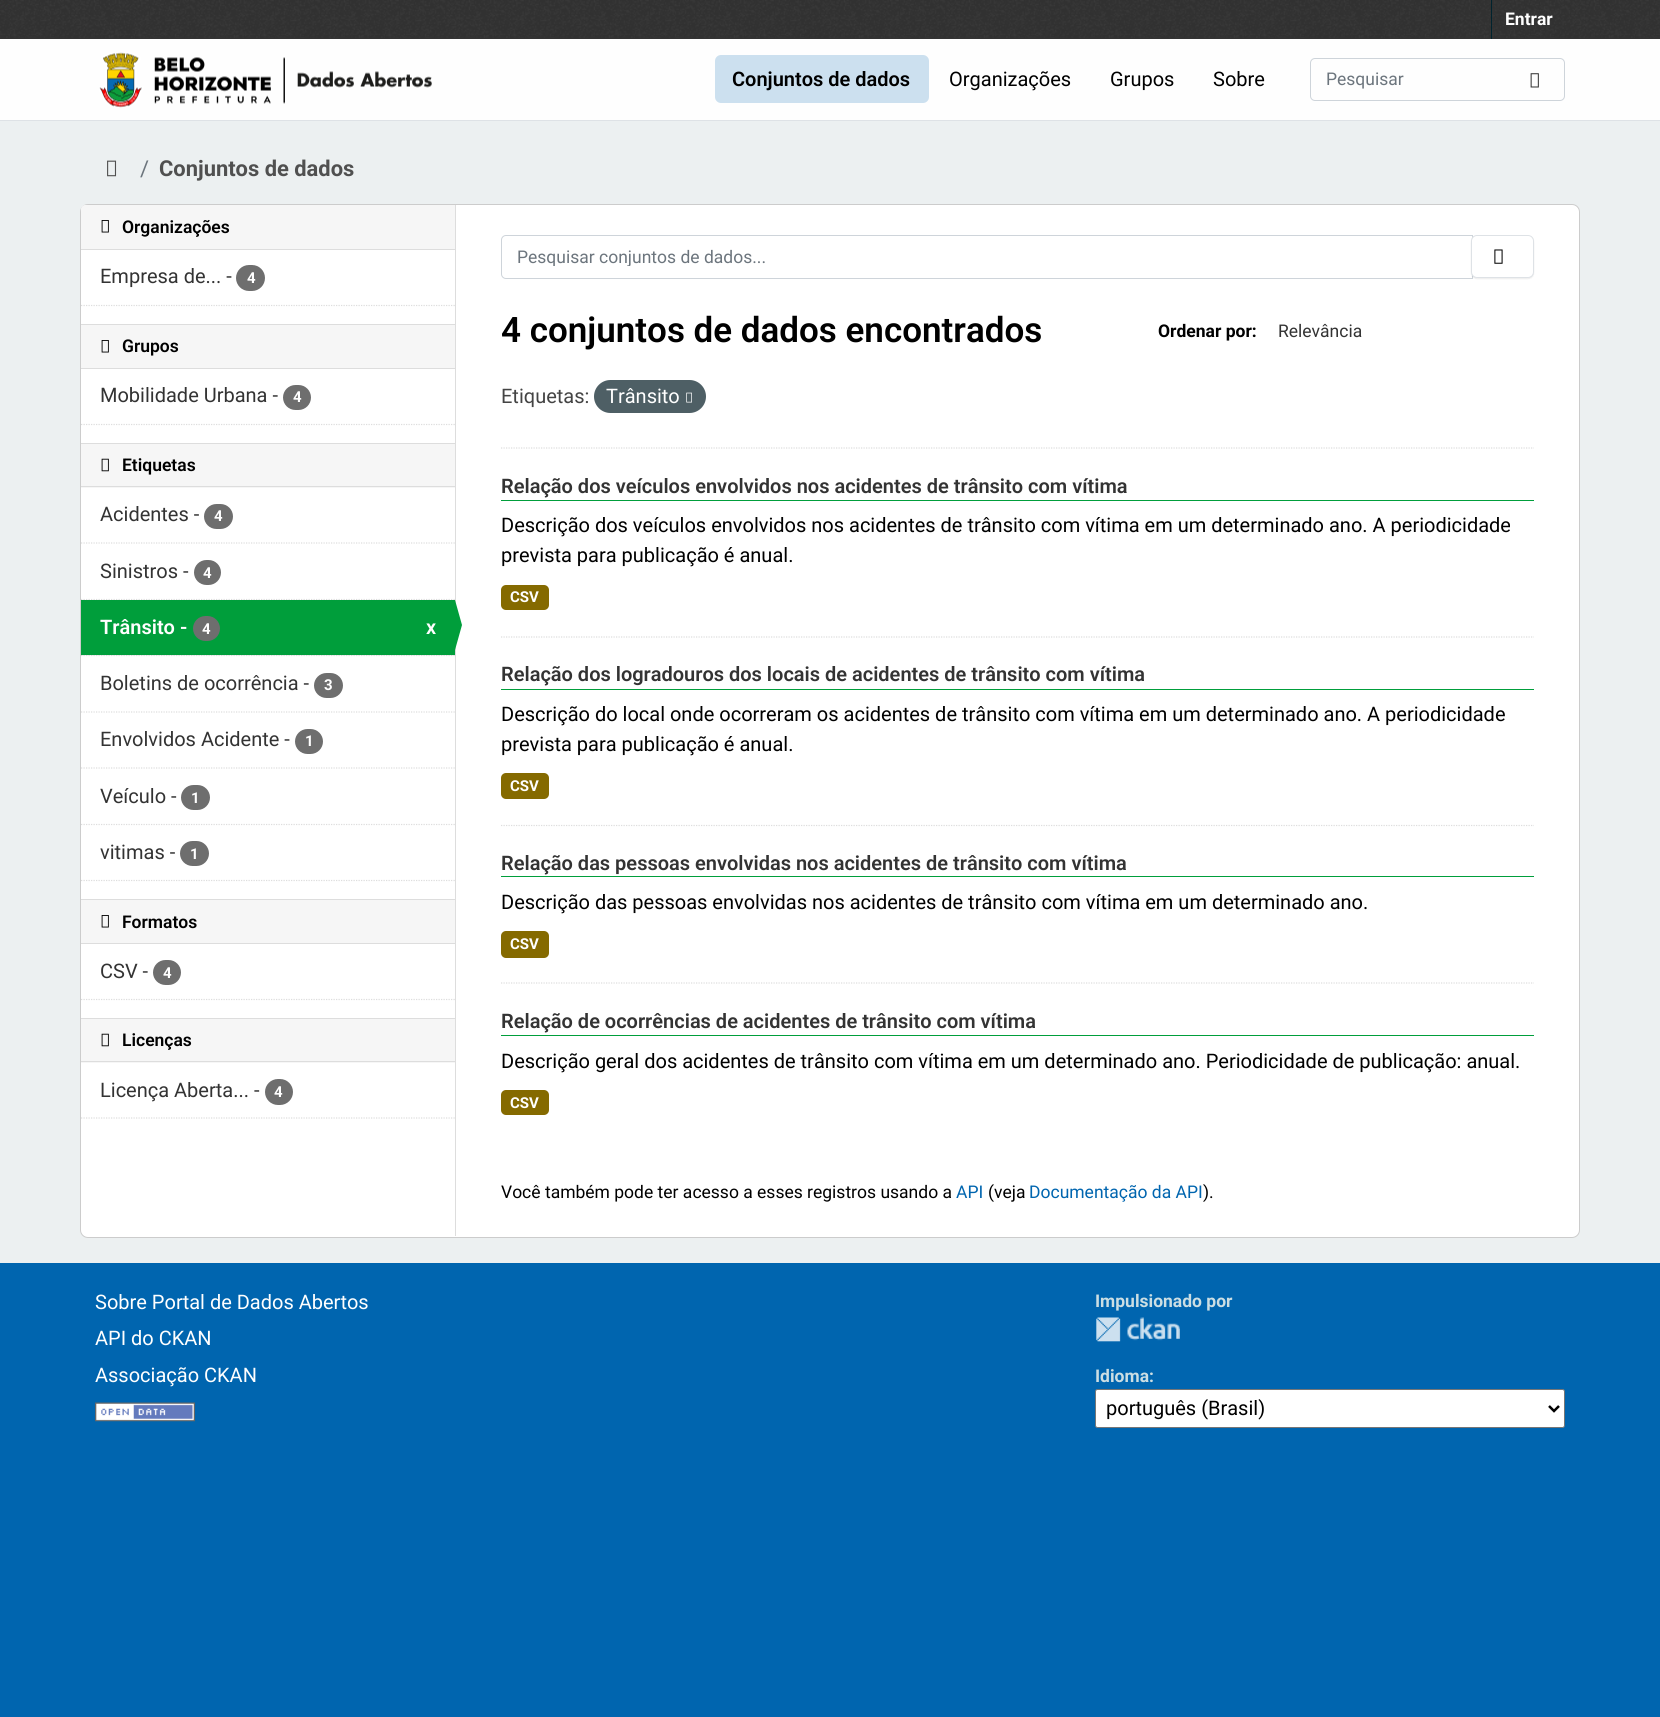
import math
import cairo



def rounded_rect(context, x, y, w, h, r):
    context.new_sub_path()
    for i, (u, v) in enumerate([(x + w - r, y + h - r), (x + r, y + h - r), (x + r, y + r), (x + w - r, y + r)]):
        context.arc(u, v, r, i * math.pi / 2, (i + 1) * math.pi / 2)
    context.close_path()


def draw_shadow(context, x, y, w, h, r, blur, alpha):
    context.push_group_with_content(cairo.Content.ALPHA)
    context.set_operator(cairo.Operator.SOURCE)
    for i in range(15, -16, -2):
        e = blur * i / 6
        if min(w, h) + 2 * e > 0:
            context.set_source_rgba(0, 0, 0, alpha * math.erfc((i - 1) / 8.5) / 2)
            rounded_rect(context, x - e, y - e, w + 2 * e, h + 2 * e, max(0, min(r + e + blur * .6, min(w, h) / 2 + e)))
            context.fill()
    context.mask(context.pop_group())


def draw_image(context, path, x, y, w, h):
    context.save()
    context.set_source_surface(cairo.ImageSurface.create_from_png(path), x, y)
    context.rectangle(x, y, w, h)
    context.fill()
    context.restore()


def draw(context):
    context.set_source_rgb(0, 101 / 255, 175 / 255)
    context.paint()
    context.set_source_rgb(236 / 255, 240 / 255, 241 / 255)
    context.rectangle(0, 121, 1660, 1142)
    context.fill()
    context.set_source_rgb(51 / 255, 51 / 255, 51 / 255)
    context.rectangle(0, 0, 1660, 39)
    context.fill()
    draw_image(context, "images/1.png", 0, 0, 1660, 38)
    context.set_source_rgb(0, 35 / 255, 46 / 255)
    context.rectangle(1491, 0, 1, 39)
    context.fill()
    context.set_source_rgb(254 / 255, 254 / 255, 254 / 255)
    context.rectangle(0, 39, 1660, 81)
    context.fill()
    context.set_source_rgb(222 / 255, 226 / 255, 230 / 255)
    context.rectangle(0, 120, 1660, 1)
    context.fill()
    draw_image(context, "images/2.png", 99, 52, 333, 56)
    context.set_source_rgb(204 / 255, 224 / 255, 239 / 255)
    rounded_rect(context, 715, 55, 214, 48, 6)
    context.fill()
    rounded_rect(context, 1310.5, 58.5, 254, 42, 4.5)
    context.set_source_rgb(206 / 255, 212 / 255, 218 / 255)
    context.set_line_width(1)
    context.stroke()
    draw_image(context, "images/3.png", 1530, 73, 9, 15)
    draw_image(context, "images/4.png", 107, 160, 10, 17)
    context.set_source_rgb(1, 1, 1)
    rounded_rect(context, 80.5, 204.5, 1499, 1033, 7.5)
    context.fill_preserve()
    context.set_source_rgb(204 / 255, 204 / 255, 204 / 255)
    context.stroke()
    context.set_source_rgb(246 / 255, 246 / 255, 246 / 255)
    context.new_path()
    context.move_to(85, 205)
    context.line_to(455, 205)
    context.line_to(455, 250)
    context.line_to(81, 250)
    context.line_to(81, 209)
    context.curve_to(81, 207, 83, 205, 85, 205)
    context.close_path()
    context.fill()
    context.set_source_rgb(221 / 255, 221 / 255, 221 / 255)
    context.rectangle(81, 249, 374, 1)
    context.fill()
    draw_image(context, "images/5.png", 101, 220, 8, 13)
    context.set_source_rgb(110 / 255, 110 / 255, 110 / 255)
    rounded_rect(context, 236, 265, 29, 26, 13)
    context.fill()
    context.new_path()
    context.move_to(81, 305.5)
    context.line_to(455, 305.5)
    context.set_source_rgb(221 / 255, 221 / 255, 221 / 255)
    context.set_line_width(1.2)
    context.set_dash([1.25, 1.25])
    context.stroke()
    context.set_source_rgb(246 / 255, 246 / 255, 246 / 255)
    context.rectangle(81, 325, 374, 43)
    context.fill()
    context.set_source_rgb(221 / 255, 221 / 255, 221 / 255)
    context.rectangle(81, 324, 374, 1)
    context.fill()
    context.rectangle(81, 368, 374, 1)
    context.fill()
    draw_image(context, "images/5.png", 101, 340, 8, 13)
    context.set_source_rgb(110 / 255, 110 / 255, 110 / 255)
    rounded_rect(context, 283, 385, 28, 25, 12.5)
    context.fill()
    context.new_path()
    context.move_to(81, 424.5)
    context.line_to(455, 424.5)
    context.set_source_rgb(221 / 255, 221 / 255, 221 / 255)
    context.stroke()
    context.set_source_rgb(246 / 255, 246 / 255, 246 / 255)
    context.rectangle(81, 444, 374, 44)
    context.fill()
    context.set_source_rgb(221 / 255, 221 / 255, 221 / 255)
    context.rectangle(81, 443, 374, 1)
    context.fill()
    context.rectangle(81, 486, 374, 1)
    context.fill()
    draw_image(context, "images/6.png", 101, 458, 8, 14)
    context.new_path()
    context.move_to(81, 543)
    context.line_to(455, 543)
    context.stroke()
    context.set_source_rgb(110 / 255, 110 / 255, 110 / 255)
    rounded_rect(context, 204, 504, 29, 25, 12.5)
    context.fill()
    context.new_path()
    context.move_to(81, 599.5)
    context.line_to(455, 599.5)
    context.set_source_rgb(221 / 255, 221 / 255, 221 / 255)
    context.stroke()
    context.set_source_rgb(110 / 255, 110 / 255, 110 / 255)
    rounded_rect(context, 194, 560, 27, 25, 12.5)
    context.fill()
    context.set_source_rgb(246 / 255, 246 / 255, 246 / 255)
    context.rectangle(82, 655, 373, 1)
    context.fill()
    context.new_path()
    context.move_to(81, 655.5)
    context.line_to(455, 655.5)
    context.set_source_rgb(221 / 255, 221 / 255, 221 / 255)
    context.stroke()
    context.set_source_rgb(0, 158 / 255, 59 / 255)
    context.rectangle(81, 600, 374, 55)
    context.fill()
    context.set_source_rgb(110 / 255, 110 / 255, 110 / 255)
    rounded_rect(context, 193, 616, 27, 25, 12.5)
    context.fill()
    context.set_source_rgb(221 / 255, 221 / 255, 221 / 255)
    context.rectangle(455, 205, 1, 1031)
    context.fill()
    context.set_source_rgb(0, 158 / 255, 59 / 255)
    context.new_path()
    context.move_to(455, 650)
    context.line_to(455, 600)
    context.line_to(462, 625)
    context.close_path()
    context.fill()
    context.new_path()
    context.move_to(81, 712)
    context.line_to(455, 712)
    context.set_source_rgb(221 / 255, 221 / 255, 221 / 255)
    context.stroke()
    context.set_source_rgb(110 / 255, 110 / 255, 110 / 255)
    rounded_rect(context, 314, 673, 29, 25, 12.5)
    context.fill()
    context.new_path()
    context.move_to(81, 768)
    context.line_to(455, 768)
    context.set_source_rgb(221 / 255, 221 / 255, 221 / 255)
    context.stroke()
    context.set_source_rgb(110 / 255, 110 / 255, 110 / 255)
    rounded_rect(context, 295, 729, 28, 25, 12.5)
    context.fill()
    context.new_path()
    context.move_to(81, 824.5)
    context.line_to(455, 824.5)
    context.set_source_rgb(221 / 255, 221 / 255, 221 / 255)
    context.stroke()
    context.set_source_rgb(110 / 255, 110 / 255, 110 / 255)
    rounded_rect(context, 181, 785, 29, 25, 12.5)
    context.fill()
    rounded_rect(context, 180, 841, 29, 25, 12.5)
    context.fill()
    context.new_path()
    context.move_to(81, 880.5)
    context.line_to(455, 880.5)
    context.set_source_rgb(221 / 255, 221 / 255, 221 / 255)
    context.stroke()
    context.set_source_rgb(246 / 255, 246 / 255, 246 / 255)
    context.rectangle(81, 900, 374, 43)
    context.fill()
    context.set_source_rgb(221 / 255, 221 / 255, 221 / 255)
    context.rectangle(81, 899, 374, 1)
    context.fill()
    context.rectangle(81, 943, 374, 1)
    context.fill()
    draw_image(context, "images/5.png", 101, 915, 8, 13)
    context.set_source_rgb(110 / 255, 110 / 255, 110 / 255)
    rounded_rect(context, 153, 960, 28, 25, 12.5)
    context.fill()
    context.new_path()
    context.move_to(81, 999.5)
    context.line_to(455, 999.5)
    context.set_source_rgb(221 / 255, 221 / 255, 221 / 255)
    context.stroke()
    context.set_source_rgb(246 / 255, 246 / 255, 246 / 255)
    context.rectangle(81, 1019, 374, 44)
    context.fill()
    context.set_source_rgb(221 / 255, 221 / 255, 221 / 255)
    context.rectangle(81, 1018, 374, 1)
    context.fill()
    context.rectangle(81, 1061, 374, 1)
    context.fill()
    draw_image(context, "images/6.png", 101, 1033, 8, 14)
    context.set_source_rgb(110 / 255, 110 / 255, 110 / 255)
    rounded_rect(context, 265, 1079, 28, 26, 13)
    context.fill()
    context.new_path()
    context.move_to(81, 1118)
    context.line_to(455, 1118)
    context.set_source_rgb(221 / 255, 221 / 255, 221 / 255)
    context.stroke()
    context.new_path()
    context.move_to(501, 448)
    context.line_to(1534, 448)
    context.stroke()
    context.new_path()
    context.move_to(506, 235.5)
    context.line_to(1472.5, 235.5)
    context.line_to(1472.5, 278.5)
    context.line_to(506, 278.5)
    context.curve_to(503.5, 278.5, 501.5, 276.5, 501.5, 274)
    context.line_to(501.5, 240)
    context.curve_to(501.5, 237.5, 503.5, 235.5, 506, 235.5)
    context.close_path()
    context.set_source_rgb(206 / 255, 212 / 255, 218 / 255)
    context.set_line_width(1)
    context.set_dash([])
    context.stroke()
    context.set_source_rgb(0, 0, 0)
    draw_shadow(context, 1471, 236, 63, 43, 6, 0.5, 0.07)
    context.set_source_rgb(1, 1, 1)
    rounded_rect(context, 1471.5, 235.5, 62, 42, 5.5)
    context.fill_preserve()
    context.set_source_rgb(222 / 255, 226 / 255, 230 / 255)
    context.stroke()
    draw_image(context, "images/7.png", 1494, 249, 9, 15)
    context.set_source_rgb(78 / 255, 95 / 255, 101 / 255)
    rounded_rect(context, 594, 380, 112, 33, 16.5)
    context.fill()
    draw_image(context, "images/8.png", 686, 392, 6, 11)
    context.new_path()
    context.move_to(501, 637)
    context.line_to(1534, 637)
    context.set_source_rgb(221 / 255, 221 / 255, 221 / 255)
    context.set_line_width(1.2)
    context.set_dash([1.25, 1.25])
    context.stroke()
    context.set_source_rgb(0, 158 / 255, 59 / 255)
    context.rectangle(501, 500, 1033, 1)
    context.fill()
    context.set_source_rgb(133 / 255, 106 / 255, 0)
    rounded_rect(context, 501, 585, 48, 25, 5)
    context.fill()
    context.new_path()
    context.move_to(501, 825.5)
    context.line_to(1534, 825.5)
    context.set_source_rgb(221 / 255, 221 / 255, 221 / 255)
    context.stroke()
    context.set_source_rgb(0, 158 / 255, 59 / 255)
    context.rectangle(501, 689, 1033, 1)
    context.fill()
    context.set_source_rgb(133 / 255, 106 / 255, 0)
    rounded_rect(context, 501, 773, 48, 26, 5)
    context.fill()
    context.new_path()
    context.move_to(501, 983)
    context.line_to(1534, 983)
    context.set_source_rgb(221 / 255, 221 / 255, 221 / 255)
    context.stroke()
    context.set_source_rgb(0, 158 / 255, 59 / 255)
    context.rectangle(501, 876, 1033, 1)
    context.fill()
    context.set_source_rgb(133 / 255, 106 / 255, 0)
    rounded_rect(context, 501, 931, 48, 27, 5)
    context.fill()
    context.set_source_rgb(0, 158 / 255, 59 / 255)
    context.rectangle(501, 1035, 1033, 1)
    context.fill()
    context.set_source_rgb(133 / 255, 106 / 255, 0)
    rounded_rect(context, 501, 1090, 48, 25, 5)
    context.fill()
    draw_image(context, "images/9.png", 95, 1402, 100, 20)
    draw_image(context, "images/10.png", 1096, 1317, 84, 25)
    context.set_source_rgb(1, 1, 1)
    rounded_rect(context, 1095.5, 1389.5, 469, 38, 2)
    context.fill_preserve()
    context.set_source_rgb(118 / 255, 118 / 255, 118 / 255)
    context.set_line_width(1)
    context.set_dash([])
    context.stroke()
    context.new_path()
    context.move_to(1549, 1406)
    context.line_to(1554, 1411)
    context.line_to(1559, 1406)
    context.set_source_rgb(0, 0, 0)
    context.set_line_width(2.5)
    context.stroke()
    context.select_font_face("Roboto", cairo.FontSlant.NORMAL, cairo.FontWeight.BOLD)
    context.set_font_size(17.5)
    context.set_source_rgb(1, 1, 1)
    context.move_to(1505, 25)
    context.show_text("Entrar")
    context.select_font_face("Roboto SemiBold")
    context.set_font_size(20)
    context.set_source_rgb(0, 0, 0)
    context.move_to(732, 86)
    context.show_text("Conjuntos de dados")
    context.select_font_face("Roboto")
    context.move_to(949, 86)
    context.show_text("Organizações")
    context.move_to(1110, 86)
    context.show_text("Grupos")
    context.move_to(1213, 86)
    context.show_text("Sobre")
    context.set_font_size(17.5)
    context.set_source_rgb(108 / 255, 117 / 255, 125 / 255)
    context.move_to(1326, 85)
    context.show_text("Pesquisar")
    context.set_font_size(21.9)
    context.move_to(140, 176)
    context.show_text("/")
    context.select_font_face("Roboto", cairo.FontSlant.NORMAL, cairo.FontWeight.BOLD)
    context.set_source_rgb(80 / 255, 80 / 255, 80 / 255)
    context.move_to(159, 176)
    context.show_text("Conjuntos de dados")
    context.select_font_face("Roboto SemiBold")
    context.set_font_size(17.5)
    context.set_source_rgb(0, 0, 0)
    context.move_to(122, 233)
    context.show_text("Organizações")
    context.select_font_face("Roboto")
    context.set_font_size(20)
    context.set_source_rgb(51 / 255, 51 / 255, 51 / 255)
    context.move_to(100, 283)
    context.show_text("Empresa de... -")
    context.select_font_face("Roboto", cairo.FontSlant.NORMAL, cairo.FontWeight.BOLD)
    context.set_font_size(15)
    context.set_source_rgb(1, 1, 1)
    context.move_to(247, 283)
    context.show_text("4")
    context.select_font_face("Roboto SemiBold")
    context.set_font_size(17.5)
    context.set_source_rgb(0, 0, 0)
    context.move_to(122, 352)
    context.show_text("Grupos")
    context.select_font_face("Roboto")
    context.set_font_size(20)
    context.set_source_rgb(51 / 255, 51 / 255, 51 / 255)
    context.move_to(100, 402)
    context.show_text("Mobilidade Urbana -")
    context.select_font_face("Roboto", cairo.FontSlant.NORMAL, cairo.FontWeight.BOLD)
    context.set_font_size(15)
    context.set_source_rgb(1, 1, 1)
    context.move_to(293, 402)
    context.show_text("4")
    context.select_font_face("Roboto SemiBold")
    context.set_font_size(17.5)
    context.set_source_rgb(0, 0, 0)
    context.move_to(122, 471)
    context.show_text("Etiquetas")
    context.select_font_face("Roboto")
    context.set_font_size(20)
    context.set_source_rgb(51 / 255, 51 / 255, 51 / 255)
    context.move_to(100, 521)
    context.show_text("Acidentes -")
    context.select_font_face("Roboto", cairo.FontSlant.NORMAL, cairo.FontWeight.BOLD)
    context.set_font_size(15)
    context.set_source_rgb(1, 1, 1)
    context.move_to(214, 521)
    context.show_text("4")
    context.select_font_face("Roboto")
    context.set_font_size(20)
    context.set_source_rgb(51 / 255, 51 / 255, 51 / 255)
    context.move_to(100, 578)
    context.show_text("Sinistros -")
    context.select_font_face("Roboto", cairo.FontSlant.NORMAL, cairo.FontWeight.BOLD)
    context.set_font_size(15)
    context.set_source_rgb(1, 1, 1)
    context.move_to(203, 578)
    context.show_text("4")
    context.select_font_face("Roboto SemiBold")
    context.set_font_size(20)
    context.move_to(100, 634)
    context.show_text("Trânsito -")
    context.select_font_face("Roboto", cairo.FontSlant.NORMAL, cairo.FontWeight.BOLD)
    context.set_font_size(15)
    context.move_to(202, 634)
    context.show_text("4")
    context.select_font_face("Roboto SemiBold")
    context.set_font_size(20)
    context.move_to(426, 634)
    context.show_text("x")
    context.select_font_face("Roboto")
    context.set_source_rgb(51 / 255, 51 / 255, 51 / 255)
    context.move_to(100, 690)
    context.show_text("Boletins de ocorrência -")
    context.select_font_face("Roboto", cairo.FontSlant.NORMAL, cairo.FontWeight.BOLD)
    context.set_font_size(15)
    context.set_source_rgb(1, 1, 1)
    context.move_to(324, 690)
    context.show_text("3")
    context.select_font_face("Roboto")
    context.set_font_size(20)
    context.set_source_rgb(51 / 255, 51 / 255, 51 / 255)
    context.move_to(100, 746)
    context.show_text("Envolvidos Acidente -")
    context.select_font_face("Roboto", cairo.FontSlant.NORMAL, cairo.FontWeight.BOLD)
    context.set_font_size(15)
    context.set_source_rgb(1, 1, 1)
    context.move_to(305, 746)
    context.show_text("1")
    context.select_font_face("Roboto")
    context.set_font_size(20)
    context.set_source_rgb(51 / 255, 51 / 255, 51 / 255)
    context.move_to(100, 803)
    context.show_text("Veículo -")
    context.select_font_face("Roboto", cairo.FontSlant.NORMAL, cairo.FontWeight.BOLD)
    context.set_font_size(15)
    context.set_source_rgb(1, 1, 1)
    context.move_to(191, 803)
    context.show_text("1")
    context.select_font_face("Roboto")
    context.set_font_size(20)
    context.set_source_rgb(51 / 255, 51 / 255, 51 / 255)
    context.move_to(100, 859)
    context.show_text("vitimas -")
    context.select_font_face("Roboto", cairo.FontSlant.NORMAL, cairo.FontWeight.BOLD)
    context.set_font_size(15)
    context.set_source_rgb(1, 1, 1)
    context.move_to(190, 859)
    context.show_text("1")
    context.select_font_face("Roboto SemiBold")
    context.set_font_size(17.5)
    context.set_source_rgb(0, 0, 0)
    context.move_to(122, 928)
    context.show_text("Formatos")
    context.select_font_face("Roboto")
    context.set_font_size(20)
    context.set_source_rgb(51 / 255, 51 / 255, 51 / 255)
    context.move_to(100, 978)
    context.show_text("CSV -")
    context.select_font_face("Roboto", cairo.FontSlant.NORMAL, cairo.FontWeight.BOLD)
    context.set_font_size(15)
    context.set_source_rgb(1, 1, 1)
    context.move_to(163, 978)
    context.show_text("4")
    context.select_font_face("Roboto SemiBold")
    context.set_font_size(17.5)
    context.set_source_rgb(0, 0, 0)
    context.move_to(122, 1046)
    context.show_text("Licenças")
    context.select_font_face("Roboto")
    context.set_font_size(20)
    context.set_source_rgb(51 / 255, 51 / 255, 51 / 255)
    context.move_to(100, 1097)
    context.show_text("Licença Aberta... -")
    context.select_font_face("Roboto", cairo.FontSlant.NORMAL, cairo.FontWeight.BOLD)
    context.set_font_size(15)
    context.set_source_rgb(1, 1, 1)
    context.move_to(274, 1097)
    context.show_text("4")
    context.save()
    context.rectangle(518, 246, 938, 20)
    context.clip()
    context.select_font_face("Roboto")
    context.set_font_size(17.5)
    context.set_source_rgb(108 / 255, 117 / 255, 125 / 255)
    context.move_to(517, 263)
    context.show_text("Pesquisar conjuntos de dados...")
    context.restore()
    context.select_font_face("Roboto SemiBold")
    context.set_font_size(35)
    context.set_source_rgb(0, 0, 0)
    context.move_to(501, 342)
    context.show_text("4 conjuntos de dados encontrados")
    context.select_font_face("Roboto", cairo.FontSlant.NORMAL, cairo.FontWeight.BOLD)
    context.set_font_size(17.5)
    context.move_to(1158, 337)
    context.show_text("Ordenar por:")
    context.select_font_face("Roboto")
    context.set_source_rgb(51 / 255, 51 / 255, 51 / 255)
    context.move_to(1278, 337)
    context.show_text("Relevância")
    context.set_font_size(20)
    context.set_source_rgb(68 / 255, 68 / 255, 68 / 255)
    context.move_to(501, 403)
    context.show_text("Etiquetas:")
    context.set_source_rgb(1, 1, 1)
    context.move_to(606, 403)
    context.show_text("Trânsito")
    context.select_font_face("Roboto SemiBold")
    context.set_source_rgb(51 / 255, 51 / 255, 51 / 255)
    context.move_to(501, 493)
    context.show_text("Relação dos veículos envolvidos nos acidentes de trânsito com vítima")
    context.select_font_face("Roboto")
    context.set_source_rgb(0, 0, 0)
    context.move_to(501, 532)
    context.show_text("Descrição dos veículos envolvidos nos acidentes de trânsito com vítima em um determinado ano. A periodicidade")
    context.move_to(501, 562)
    context.show_text("prevista para publicação é anual.")
    context.select_font_face("Roboto", cairo.FontSlant.NORMAL, cairo.FontWeight.BOLD)
    context.set_font_size(15)
    context.set_source_rgb(1, 1, 1)
    context.move_to(510, 602)
    context.show_text("CSV")
    context.select_font_face("Roboto SemiBold")
    context.set_font_size(20)
    context.set_source_rgb(51 / 255, 51 / 255, 51 / 255)
    context.move_to(501, 681)
    context.show_text("Relação dos logradouros dos locais de acidentes de trânsito com vítima")
    context.select_font_face("Roboto")
    context.set_source_rgb(0, 0, 0)
    context.move_to(501, 721)
    context.show_text("Descrição do local onde ocorreram os acidentes de trânsito com vítima em um determinado ano. A periodicidade")
    context.move_to(501, 751)
    context.show_text("prevista para publicação é anual.")
    context.select_font_face("Roboto", cairo.FontSlant.NORMAL, cairo.FontWeight.BOLD)
    context.set_font_size(15)
    context.set_source_rgb(1, 1, 1)
    context.move_to(510, 791)
    context.show_text("CSV")
    context.select_font_face("Roboto SemiBold")
    context.set_font_size(20)
    context.set_source_rgb(51 / 255, 51 / 255, 51 / 255)
    context.move_to(501, 870)
    context.show_text("Relação das pessoas envolvidas nos acidentes de trânsito com vítima")
    context.select_font_face("Roboto")
    context.set_source_rgb(0, 0, 0)
    context.move_to(501, 909)
    context.show_text("Descrição das pessoas envolvidas nos acidentes de trânsito com vítima em um determinado ano.")
    context.select_font_face("Roboto", cairo.FontSlant.NORMAL, cairo.FontWeight.BOLD)
    context.set_font_size(15)
    context.set_source_rgb(1, 1, 1)
    context.move_to(510, 949)
    context.show_text("CSV")
    context.select_font_face("Roboto SemiBold")
    context.set_font_size(20)
    context.set_source_rgb(51 / 255, 51 / 255, 51 / 255)
    context.move_to(501, 1028)
    context.show_text("Relação de ocorrências de acidentes de trânsito com vítima")
    context.select_font_face("Roboto")
    context.set_source_rgb(0, 0, 0)
    context.move_to(501, 1068)
    context.show_text("Descrição geral dos acidentes de trânsito com vítima em um determinado ano. Periodicidade de publicação: anual.")
    context.select_font_face("Roboto", cairo.FontSlant.NORMAL, cairo.FontWeight.BOLD)
    context.set_font_size(15)
    context.set_source_rgb(1, 1, 1)
    context.move_to(510, 1108)
    context.show_text("CSV")
    context.select_font_face("Roboto")
    context.set_font_size(17.5)
    context.set_source_rgb(0, 0, 0)
    context.move_to(501, 1198)
    context.show_text("Você também pode ter acesso a esses registros usando a")
    context.set_source_rgb(0, 101 / 255, 175 / 255)
    context.move_to(956, 1198)
    context.show_text("API")
    context.set_source_rgb(0, 0, 0)
    context.move_to(988, 1198)
    context.show_text("(veja")
    context.set_source_rgb(0, 101 / 255, 175 / 255)
    context.move_to(1029, 1198)
    context.show_text("Documentação da API")
    context.set_source_rgb(0, 0, 0)
    context.move_to(1203, 1198)
    context.show_text(").")
    context.set_font_size(20)
    context.set_source_rgb(1, 1, 1)
    context.move_to(95, 1309)
    context.show_text("Sobre Portal de Dados Abertos")
    context.move_to(95, 1345)
    context.show_text("API do CKAN")
    context.move_to(95, 1382)
    context.show_text("Associação CKAN")
    context.select_font_face("Roboto", cairo.FontSlant.NORMAL, cairo.FontWeight.BOLD)
    context.set_font_size(17.5)
    context.set_source_rgb(204 / 255, 222 / 255, 227 / 255)
    context.move_to(1095, 1307)
    context.show_text("Impulsionado por")
    context.move_to(1095, 1382)
    context.show_text("Idioma:")
    context.select_font_face("Roboto")
    context.set_font_size(20)
    context.set_source_rgb(0, 0, 0)
    context.move_to(1106, 1415)
    context.show_text("português (Brasil)")


surface = cairo.ImageSurface(cairo.Format.RGB24, 1660, 1717)
context = cairo.Context(surface)
options = cairo.FontOptions()
options.set_hint_metrics(cairo.HintMetrics.OFF)
options.set_hint_style(cairo.HintStyle.NONE)
context.set_font_options(options)
context.set_miter_limit(4)
draw(context)
surface.write_to_png("out.png")
